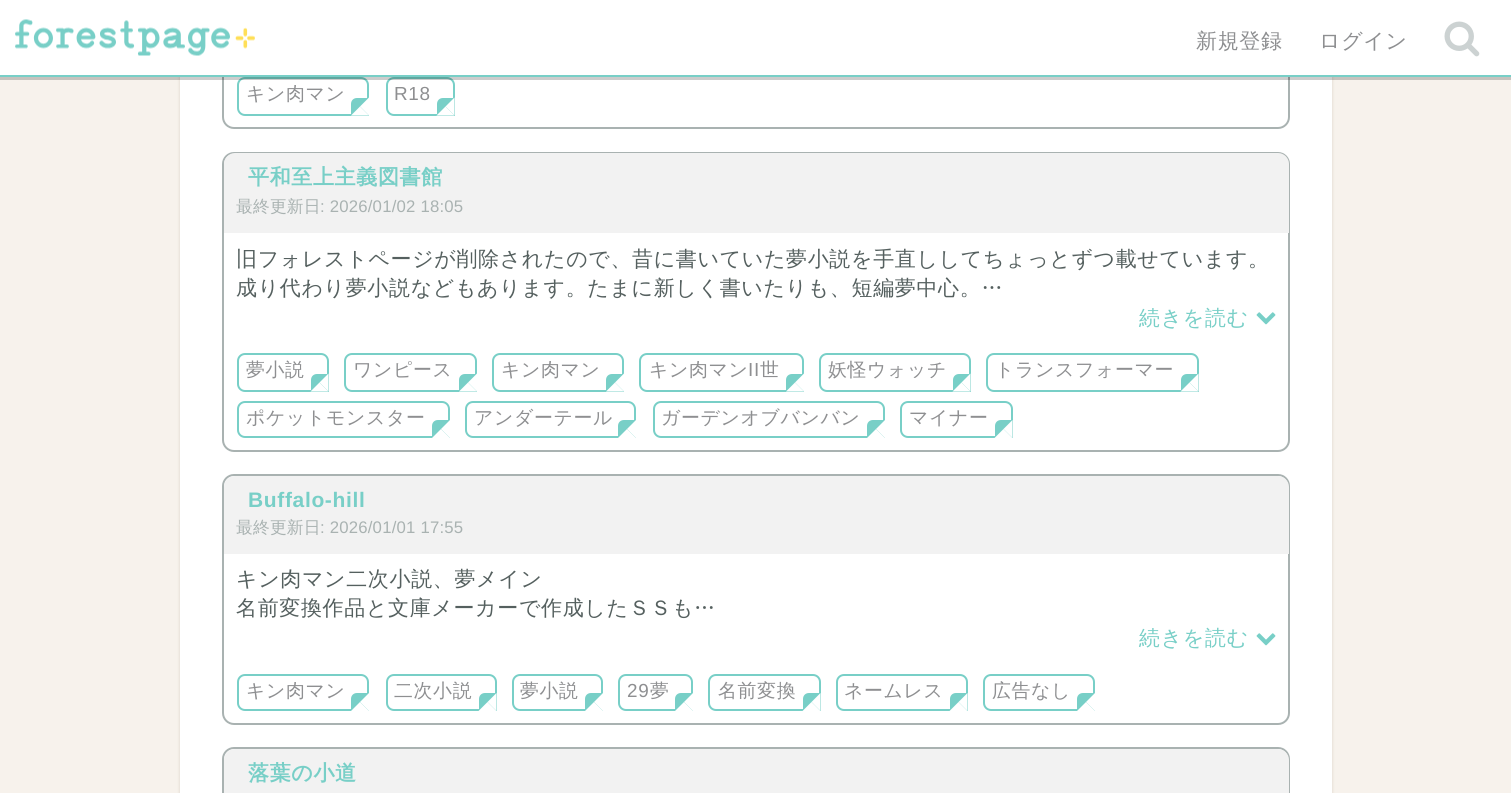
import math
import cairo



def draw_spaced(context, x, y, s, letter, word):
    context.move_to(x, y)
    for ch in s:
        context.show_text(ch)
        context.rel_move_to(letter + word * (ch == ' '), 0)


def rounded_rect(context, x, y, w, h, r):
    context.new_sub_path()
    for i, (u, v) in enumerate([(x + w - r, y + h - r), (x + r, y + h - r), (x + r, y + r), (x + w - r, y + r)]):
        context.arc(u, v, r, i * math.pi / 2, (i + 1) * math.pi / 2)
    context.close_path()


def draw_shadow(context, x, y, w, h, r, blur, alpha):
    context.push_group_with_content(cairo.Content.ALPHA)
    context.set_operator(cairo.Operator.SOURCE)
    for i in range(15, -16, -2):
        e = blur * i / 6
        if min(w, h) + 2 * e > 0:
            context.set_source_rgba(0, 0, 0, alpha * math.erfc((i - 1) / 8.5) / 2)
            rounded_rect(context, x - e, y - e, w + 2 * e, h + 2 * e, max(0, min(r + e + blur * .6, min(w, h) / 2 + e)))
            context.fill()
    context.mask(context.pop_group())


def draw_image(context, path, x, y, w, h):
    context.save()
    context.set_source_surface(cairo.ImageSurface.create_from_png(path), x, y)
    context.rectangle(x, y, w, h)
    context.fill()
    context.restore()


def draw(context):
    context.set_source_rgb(247 / 255, 242 / 255, 236 / 255)
    context.paint()
    context.set_source_rgb(218 / 255, 209 / 255, 198 / 255)
    draw_shadow(context, 180, -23, 1152, 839, 18, 1.5, 1)
    context.set_source_rgb(1, 1, 1)
    context.rectangle(180, 77, 1152, 716)
    context.fill()
    rounded_rect(context, 223, -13, 1066, 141, 11)
    context.set_source_rgb(169 / 255, 178 / 255, 177 / 255)
    context.stroke()
    rounded_rect(context, 238, 78, 130, 37, 7)
    context.set_source_rgb(120 / 255, 207 / 255, 199 / 255)
    context.stroke()
    rounded_rect(context, 387, 78, 67, 37, 7)
    context.stroke()
    context.set_source_rgba(0, 0, 0, 0.2)
    context.rectangle(0, 77, 1511, 3)
    context.fill()
    context.set_source_rgb(1, 1, 1)
    context.rectangle(0, 0, 1511, 75)
    context.fill()
    context.set_source_rgb(120 / 255, 207 / 255, 199 / 255)
    context.rectangle(0, 75, 1511, 2)
    context.fill()
    draw_image(context, "images/1.png", 15, 19, 240, 37)
    draw_image(context, "images/2.png", 1444, 21, 36, 36)
    context.new_path()
    context.move_to(357, 98)
    context.line_to(369, 98)
    context.line_to(369, 116)
    context.line_to(351, 116)
    context.line_to(351, 104)
    context.curve_to(351, 100.5, 353.5, 98, 357, 98)
    context.close_path()
    context.fill()
    context.set_source_rgb(1, 1, 1)
    context.new_path()
    context.move_to(360, 106.5)
    context.line_to(369, 115.5)
    context.line_to(369, 97.5)
    context.close_path()
    context.fill()
    context.new_path()
    context.move_to(360, 106.5)
    context.line_to(351, 115.5)
    context.line_to(369, 115.5)
    context.close_path()
    context.fill()
    context.set_source_rgb(120 / 255, 207 / 255, 199 / 255)
    context.new_path()
    context.move_to(443, 98)
    context.line_to(455, 98)
    context.line_to(455, 116)
    context.line_to(437, 116)
    context.line_to(437, 104)
    context.curve_to(437, 100.5, 439.5, 98, 443, 98)
    context.close_path()
    context.fill()
    context.set_source_rgb(1, 1, 1)
    context.new_path()
    context.move_to(445.5, 106.5)
    context.line_to(454.5, 115.5)
    context.line_to(454.5, 97.5)
    context.close_path()
    context.fill()
    context.new_path()
    context.move_to(445.5, 106.5)
    context.line_to(436.5, 115.5)
    context.line_to(454.5, 115.5)
    context.close_path()
    context.fill()
    rounded_rect(context, 223, 153, 1066, 298, 11)
    context.set_source_rgb(169 / 255, 178 / 255, 177 / 255)
    context.stroke()
    context.set_source_rgb(242 / 255, 242 / 255, 242 / 255)
    context.new_path()
    context.move_to(235, 153)
    context.line_to(1278, 153)
    context.curve_to(1284, 153, 1289, 158, 1289, 164)
    context.line_to(1289, 233)
    context.line_to(224, 233)
    context.line_to(224, 164)
    context.curve_to(224, 158, 229, 153, 235, 153)
    context.close_path()
    context.fill()
    draw_image(context, "images/3.png", 1256, 312, 20, 13)
    rounded_rect(context, 238, 354, 90, 37, 7)
    context.set_source_rgb(120 / 255, 207 / 255, 199 / 255)
    context.stroke()
    context.new_path()
    context.move_to(317, 374)
    context.line_to(329, 374)
    context.line_to(329, 392)
    context.line_to(311, 392)
    context.line_to(311, 380)
    context.curve_to(311, 376.5, 313.5, 374, 317, 374)
    context.close_path()
    context.fill()
    context.set_source_rgb(1, 1, 1)
    context.new_path()
    context.move_to(319.5, 382.5)
    context.line_to(328.5, 391.5)
    context.line_to(328.5, 373.5)
    context.close_path()
    context.fill()
    context.new_path()
    context.move_to(319.5, 382.5)
    context.line_to(310.5, 391.5)
    context.line_to(328.5, 391.5)
    context.close_path()
    context.fill()
    rounded_rect(context, 345, 354, 131, 37, 7)
    context.set_source_rgb(120 / 255, 207 / 255, 199 / 255)
    context.stroke()
    context.new_path()
    context.move_to(465, 374)
    context.line_to(477, 374)
    context.line_to(477, 392)
    context.line_to(459, 392)
    context.line_to(459, 380)
    context.curve_to(459, 376.5, 461.5, 374, 465, 374)
    context.close_path()
    context.fill()
    context.set_source_rgb(1, 1, 1)
    context.new_path()
    context.move_to(468, 382.5)
    context.line_to(477, 391.5)
    context.line_to(477, 373.5)
    context.close_path()
    context.fill()
    context.new_path()
    context.move_to(468, 382.5)
    context.line_to(459, 391.5)
    context.line_to(477, 391.5)
    context.close_path()
    context.fill()
    rounded_rect(context, 493, 354, 130, 37, 7)
    context.set_source_rgb(120 / 255, 207 / 255, 199 / 255)
    context.stroke()
    context.new_path()
    context.move_to(612, 374)
    context.line_to(624, 374)
    context.line_to(624, 392)
    context.line_to(606, 392)
    context.line_to(606, 380)
    context.curve_to(606, 376.5, 608.5, 374, 612, 374)
    context.close_path()
    context.fill()
    context.set_source_rgb(1, 1, 1)
    context.new_path()
    context.move_to(615, 382.5)
    context.line_to(624, 391.5)
    context.line_to(624, 373.5)
    context.close_path()
    context.fill()
    context.new_path()
    context.move_to(615, 382.5)
    context.line_to(606, 391.5)
    context.line_to(624, 391.5)
    context.close_path()
    context.fill()
    rounded_rect(context, 640, 354, 163, 37, 7)
    context.set_source_rgb(120 / 255, 207 / 255, 199 / 255)
    context.stroke()
    context.new_path()
    context.move_to(792, 374)
    context.line_to(804, 374)
    context.line_to(804, 392)
    context.line_to(786, 392)
    context.line_to(786, 380)
    context.curve_to(786, 376.5, 788.5, 374, 792, 374)
    context.close_path()
    context.fill()
    context.set_source_rgb(1, 1, 1)
    context.new_path()
    context.move_to(795, 382.5)
    context.line_to(804, 391.5)
    context.line_to(804, 373.5)
    context.close_path()
    context.fill()
    context.new_path()
    context.move_to(795, 382.5)
    context.line_to(786, 391.5)
    context.line_to(804, 391.5)
    context.close_path()
    context.fill()
    rounded_rect(context, 820, 354, 150, 37, 7)
    context.set_source_rgb(120 / 255, 207 / 255, 199 / 255)
    context.stroke()
    context.new_path()
    context.move_to(959, 374)
    context.line_to(971, 374)
    context.line_to(971, 392)
    context.line_to(953, 392)
    context.line_to(953, 380)
    context.curve_to(953, 376.5, 955.5, 374, 959, 374)
    context.close_path()
    context.fill()
    context.set_source_rgb(1, 1, 1)
    context.new_path()
    context.move_to(961.5, 382.5)
    context.line_to(970.5, 391.5)
    context.line_to(970.5, 373.5)
    context.close_path()
    context.fill()
    context.new_path()
    context.move_to(961.5, 382.5)
    context.line_to(952.5, 391.5)
    context.line_to(970.5, 391.5)
    context.close_path()
    context.fill()
    rounded_rect(context, 987, 354, 211, 37, 7)
    context.set_source_rgb(120 / 255, 207 / 255, 199 / 255)
    context.stroke()
    context.new_path()
    context.move_to(1187, 374)
    context.line_to(1199, 374)
    context.line_to(1199, 392)
    context.line_to(1181, 392)
    context.line_to(1181, 380)
    context.curve_to(1181, 376.5, 1183.5, 374, 1187, 374)
    context.close_path()
    context.fill()
    context.set_source_rgb(1, 1, 1)
    context.new_path()
    context.move_to(1189.5, 382.5)
    context.line_to(1198.5, 391.5)
    context.line_to(1198.5, 373.5)
    context.close_path()
    context.fill()
    context.new_path()
    context.move_to(1189.5, 382.5)
    context.line_to(1180.5, 391.5)
    context.line_to(1198.5, 391.5)
    context.close_path()
    context.fill()
    rounded_rect(context, 238, 402, 211, 35, 7)
    context.set_source_rgb(120 / 255, 207 / 255, 199 / 255)
    context.stroke()
    context.new_path()
    context.move_to(438, 420)
    context.line_to(450, 420)
    context.line_to(450, 438)
    context.line_to(432, 438)
    context.line_to(432, 426)
    context.curve_to(432, 422.5, 434.5, 420, 438, 420)
    context.close_path()
    context.fill()
    context.set_source_rgb(1, 1, 1)
    context.new_path()
    context.move_to(441, 429)
    context.line_to(450, 438)
    context.line_to(450, 420)
    context.close_path()
    context.fill()
    context.new_path()
    context.move_to(441, 429)
    context.line_to(432, 438)
    context.line_to(450, 438)
    context.close_path()
    context.fill()
    rounded_rect(context, 466, 402, 169, 35, 7)
    context.set_source_rgb(120 / 255, 207 / 255, 199 / 255)
    context.stroke()
    context.new_path()
    context.move_to(624, 420)
    context.line_to(636, 420)
    context.line_to(636, 438)
    context.line_to(618, 438)
    context.line_to(618, 426)
    context.curve_to(618, 422.5, 620.5, 420, 624, 420)
    context.close_path()
    context.fill()
    context.set_source_rgb(1, 1, 1)
    context.new_path()
    context.move_to(627, 429)
    context.line_to(636, 438)
    context.line_to(636, 420)
    context.close_path()
    context.fill()
    context.new_path()
    context.move_to(627, 429)
    context.line_to(618, 438)
    context.line_to(636, 438)
    context.close_path()
    context.fill()
    rounded_rect(context, 654, 402, 230, 35, 7)
    context.set_source_rgb(120 / 255, 207 / 255, 199 / 255)
    context.stroke()
    context.new_path()
    context.move_to(873, 420)
    context.line_to(885, 420)
    context.line_to(885, 438)
    context.line_to(867, 438)
    context.line_to(867, 426)
    context.curve_to(867, 422.5, 869.5, 420, 873, 420)
    context.close_path()
    context.fill()
    context.set_source_rgb(1, 1, 1)
    context.new_path()
    context.move_to(876, 429)
    context.line_to(885, 438)
    context.line_to(885, 420)
    context.close_path()
    context.fill()
    context.new_path()
    context.move_to(876, 429)
    context.line_to(867, 438)
    context.line_to(885, 438)
    context.close_path()
    context.fill()
    rounded_rect(context, 901, 402, 111, 35, 7)
    context.set_source_rgb(120 / 255, 207 / 255, 199 / 255)
    context.stroke()
    context.new_path()
    context.move_to(1001, 420)
    context.line_to(1013, 420)
    context.line_to(1013, 438)
    context.line_to(995, 438)
    context.line_to(995, 426)
    context.curve_to(995, 422.5, 997.5, 420, 1001, 420)
    context.close_path()
    context.fill()
    context.set_source_rgb(1, 1, 1)
    context.new_path()
    context.move_to(1003.5, 429)
    context.line_to(1012.5, 438)
    context.line_to(1012.5, 420)
    context.close_path()
    context.fill()
    context.new_path()
    context.move_to(1003.5, 429)
    context.line_to(994.5, 438)
    context.line_to(1012.5, 438)
    context.close_path()
    context.fill()
    rounded_rect(context, 223, 475, 1066, 249, 11)
    context.set_source_rgb(169 / 255, 178 / 255, 177 / 255)
    context.stroke()
    context.set_source_rgb(242 / 255, 242 / 255, 242 / 255)
    context.new_path()
    context.move_to(235, 476)
    context.line_to(1278, 476)
    context.curve_to(1284, 476, 1289, 481, 1289, 487)
    context.line_to(1289, 554)
    context.line_to(224, 554)
    context.line_to(224, 487)
    context.curve_to(224, 481, 229, 476, 235, 476)
    context.close_path()
    context.fill()
    draw_image(context, "images/3.png", 1256, 633, 20, 13)
    rounded_rect(context, 238, 675, 130, 35, 7)
    context.set_source_rgb(120 / 255, 207 / 255, 199 / 255)
    context.stroke()
    context.new_path()
    context.move_to(357, 693)
    context.line_to(369, 693)
    context.line_to(369, 711)
    context.line_to(351, 711)
    context.line_to(351, 699)
    context.curve_to(351, 695.5, 353.5, 693, 357, 693)
    context.close_path()
    context.fill()
    context.set_source_rgb(1, 1, 1)
    context.new_path()
    context.move_to(360, 702)
    context.line_to(369, 711)
    context.line_to(369, 693)
    context.close_path()
    context.fill()
    context.new_path()
    context.move_to(360, 702)
    context.line_to(351, 711)
    context.line_to(369, 711)
    context.close_path()
    context.fill()
    rounded_rect(context, 387, 675, 109, 35, 7)
    context.set_source_rgb(120 / 255, 207 / 255, 199 / 255)
    context.stroke()
    context.new_path()
    context.move_to(485, 693)
    context.line_to(497, 693)
    context.line_to(497, 711)
    context.line_to(479, 711)
    context.line_to(479, 699)
    context.curve_to(479, 695.5, 481.5, 693, 485, 693)
    context.close_path()
    context.fill()
    context.set_source_rgb(1, 1, 1)
    context.new_path()
    context.move_to(487.5, 702)
    context.line_to(496.5, 711)
    context.line_to(496.5, 693)
    context.close_path()
    context.fill()
    context.new_path()
    context.move_to(487.5, 702)
    context.line_to(478.5, 711)
    context.line_to(496.5, 711)
    context.close_path()
    context.fill()
    rounded_rect(context, 513, 675, 89, 35, 7)
    context.set_source_rgb(120 / 255, 207 / 255, 199 / 255)
    context.stroke()
    context.new_path()
    context.move_to(591, 693)
    context.line_to(603, 693)
    context.line_to(603, 711)
    context.line_to(585, 711)
    context.line_to(585, 699)
    context.curve_to(585, 695.5, 587.5, 693, 591, 693)
    context.close_path()
    context.fill()
    context.set_source_rgb(1, 1, 1)
    context.new_path()
    context.move_to(594, 702)
    context.line_to(603, 711)
    context.line_to(603, 693)
    context.close_path()
    context.fill()
    context.new_path()
    context.move_to(594, 702)
    context.line_to(585, 711)
    context.line_to(603, 711)
    context.close_path()
    context.fill()
    rounded_rect(context, 619, 675, 73, 35, 7)
    context.set_source_rgb(120 / 255, 207 / 255, 199 / 255)
    context.stroke()
    context.new_path()
    context.move_to(681, 693)
    context.line_to(693, 693)
    context.line_to(693, 711)
    context.line_to(675, 711)
    context.line_to(675, 699)
    context.curve_to(675, 695.5, 677.5, 693, 681, 693)
    context.close_path()
    context.fill()
    context.set_source_rgb(1, 1, 1)
    context.new_path()
    context.move_to(684, 702)
    context.line_to(693, 711)
    context.line_to(693, 693)
    context.close_path()
    context.fill()
    context.new_path()
    context.move_to(684, 702)
    context.line_to(675, 711)
    context.line_to(693, 711)
    context.close_path()
    context.fill()
    rounded_rect(context, 709, 675, 111, 35, 7)
    context.set_source_rgb(120 / 255, 207 / 255, 199 / 255)
    context.stroke()
    context.new_path()
    context.move_to(809, 693)
    context.line_to(821, 693)
    context.line_to(821, 711)
    context.line_to(803, 711)
    context.line_to(803, 699)
    context.curve_to(803, 695.5, 805.5, 693, 809, 693)
    context.close_path()
    context.fill()
    context.set_source_rgb(1, 1, 1)
    context.new_path()
    context.move_to(811.5, 702)
    context.line_to(820.5, 711)
    context.line_to(820.5, 693)
    context.close_path()
    context.fill()
    context.new_path()
    context.move_to(811.5, 702)
    context.line_to(802.5, 711)
    context.line_to(820.5, 711)
    context.close_path()
    context.fill()
    rounded_rect(context, 837, 675, 130, 35, 7)
    context.set_source_rgb(120 / 255, 207 / 255, 199 / 255)
    context.stroke()
    context.new_path()
    context.move_to(956, 693)
    context.line_to(968, 693)
    context.line_to(968, 711)
    context.line_to(950, 711)
    context.line_to(950, 699)
    context.curve_to(950, 695.5, 952.5, 693, 956, 693)
    context.close_path()
    context.fill()
    context.set_source_rgb(1, 1, 1)
    context.new_path()
    context.move_to(958.5, 702)
    context.line_to(967.5, 711)
    context.line_to(967.5, 693)
    context.close_path()
    context.fill()
    context.new_path()
    context.move_to(958.5, 702)
    context.line_to(949.5, 711)
    context.line_to(967.5, 711)
    context.close_path()
    context.fill()
    rounded_rect(context, 984, 675, 110, 35, 7)
    context.set_source_rgb(120 / 255, 207 / 255, 199 / 255)
    context.stroke()
    context.new_path()
    context.move_to(1083, 693)
    context.line_to(1095, 693)
    context.line_to(1095, 711)
    context.line_to(1077, 711)
    context.line_to(1077, 699)
    context.curve_to(1077, 695.5, 1079.5, 693, 1083, 693)
    context.close_path()
    context.fill()
    context.set_source_rgb(1, 1, 1)
    context.new_path()
    context.move_to(1086, 702)
    context.line_to(1095, 711)
    context.line_to(1095, 693)
    context.close_path()
    context.fill()
    context.new_path()
    context.move_to(1086, 702)
    context.line_to(1077, 711)
    context.line_to(1095, 711)
    context.close_path()
    context.fill()
    rounded_rect(context, 223, 748, 1066, 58, 11)
    context.set_source_rgb(169 / 255, 178 / 255, 177 / 255)
    context.stroke()
    context.set_source_rgb(242 / 255, 242 / 255, 242 / 255)
    context.new_path()
    context.move_to(235, 749)
    context.line_to(1278, 749)
    context.curve_to(1284, 749, 1289, 754, 1289, 760)
    context.line_to(1289, 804)
    context.line_to(224, 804)
    context.line_to(224, 760)
    context.curve_to(224, 754, 229, 749, 235, 749)
    context.close_path()
    context.fill()
    context.select_font_face("WenQuanYi Zen Hei Medium")
    context.set_font_size(21)
    context.set_source_rgb(142 / 255, 143 / 255, 145 / 255)
    draw_spaced(context, 1196, 48, "新規登録", 0.65, 0)
    draw_spaced(context, 1319, 48, "ログイン", 0.65, 0)
    context.set_font_size(18.9)
    draw_spaced(context, 246, 100, "キン肉マン", 0.65, 0)
    context.select_font_face("Liberation Sans")
    draw_spaced(context, 394, 100, "R18", 0.65, 0)
    context.select_font_face("WenQuanYi Zen Hei", cairo.FontSlant.NORMAL, cairo.FontWeight.BOLD)
    context.set_font_size(21)
    context.set_source_rgb(120 / 255, 207 / 255, 199 / 255)
    draw_spaced(context, 248, 184, "平和至上主義図書館", 0.65, 0)
    context.select_font_face("WenQuanYi Zen Hei Medium")
    context.set_font_size(16.75)
    context.set_source_rgb(169 / 255, 178 / 255, 177 / 255)
    draw_spaced(context, 236, 212, "最終更新日", 0.2, 0)
    context.select_font_face("Liberation Sans")
    draw_spaced(context, 320, 212, ": 2026/01/02 18:05", 0.2, 0)
    context.select_font_face("WenQuanYi Zen Hei Medium")
    context.set_font_size(21)
    context.set_source_rgb(85 / 255, 96 / 255, 95 / 255)
    draw_spaced(context, 236, 266, "旧フォレストページが削除されたので、昔に書いていた夢小説を手直ししてちょっとずつ載せています。", 0.65, 0)
    draw_spaced(context, 236, 295, "成り代わり夢小説などもあります。たまに新しく書いたりも、短編夢中心。…", 0.65, 0)
    context.set_source_rgb(120 / 255, 207 / 255, 199 / 255)
    draw_spaced(context, 1139, 325, "続きを読む", 0.65, 0)
    context.set_font_size(18.9)
    context.set_source_rgb(142 / 255, 143 / 255, 145 / 255)
    draw_spaced(context, 246, 376, "夢小説", 0.65, 0)
    draw_spaced(context, 353, 376, "ワンピース", 0.65, 0)
    draw_spaced(context, 501, 376, "キン肉マン", 0.65, 0)
    draw_spaced(context, 649, 376, "キン肉マン", 0.65, 0)
    context.select_font_face("Liberation Sans")
    draw_spaced(context, 748, 376, "II", 0.65, 0)
    context.select_font_face("WenQuanYi Zen Hei Medium")
    draw_spaced(context, 760, 376, "世", 0.65, 0)
    draw_spaced(context, 828, 376, "妖怪ウォッチ", 0.65, 0)
    draw_spaced(context, 995, 376, "トランスフォーマー", 0.65, 0)
    draw_spaced(context, 246, 424, "ポケットモンスター", 0.65, 0)
    draw_spaced(context, 474, 424, "アンダーテール", 0.65, 0)
    draw_spaced(context, 661, 424, "ガーデンオブバンバン", 0.65, 0)
    draw_spaced(context, 909, 424, "マイナー", 0.65, 0)
    context.select_font_face("Liberation Sans", cairo.FontSlant.NORMAL, cairo.FontWeight.BOLD)
    context.set_font_size(21)
    context.set_source_rgb(120 / 255, 207 / 255, 199 / 255)
    draw_spaced(context, 248, 507, "Buffalo-hill", 0.65, 0)
    context.select_font_face("WenQuanYi Zen Hei Medium")
    context.set_font_size(16.75)
    context.set_source_rgb(169 / 255, 178 / 255, 177 / 255)
    draw_spaced(context, 236, 533, "最終更新日", 0.2, 0)
    context.select_font_face("Liberation Sans")
    draw_spaced(context, 320, 533, ": 2026/01/01 17:55", 0.2, 0)
    context.select_font_face("WenQuanYi Zen Hei Medium")
    context.set_font_size(21)
    context.set_source_rgb(85 / 255, 96 / 255, 95 / 255)
    draw_spaced(context, 236, 586, "キン肉マン二次小説、夢メイン", 0.65, 0)
    draw_spaced(context, 236, 615, "名前変換作品と文庫メーカーで作成したＳＳも…", 0.65, 0)
    context.set_source_rgb(120 / 255, 207 / 255, 199 / 255)
    draw_spaced(context, 1139, 645, "続きを読む", 0.65, 0)
    context.set_font_size(18.9)
    context.set_source_rgb(142 / 255, 143 / 255, 145 / 255)
    draw_spaced(context, 246, 697, "キン肉マン", 0.65, 0)
    draw_spaced(context, 394, 697, "二次小説", 0.65, 0)
    draw_spaced(context, 520, 697, "夢小説", 0.65, 0)
    context.select_font_face("Liberation Sans")
    draw_spaced(context, 627, 697, "29", 0.65, 0)
    context.select_font_face("WenQuanYi Zen Hei Medium")
    draw_spaced(context, 650, 697, "夢", 0.65, 0)
    draw_spaced(context, 718, 697, "名前変換", 0.65, 0)
    draw_spaced(context, 844, 697, "ネームレス", 0.65, 0)
    draw_spaced(context, 992, 697, "広告なし", 0.65, 0)
    context.select_font_face("WenQuanYi Zen Hei", cairo.FontSlant.NORMAL, cairo.FontWeight.BOLD)
    context.set_font_size(21)
    context.set_source_rgb(120 / 255, 207 / 255, 199 / 255)
    draw_spaced(context, 248, 780, "落葉の小道", 0.65, 0)


surface = cairo.ImageSurface(cairo.Format.RGB24, 1511, 793)
context = cairo.Context(surface)
options = cairo.FontOptions()
options.set_hint_metrics(cairo.HintMetrics.OFF)
options.set_hint_style(cairo.HintStyle.NONE)
context.set_font_options(options)
context.set_miter_limit(4)
draw(context)
surface.write_to_png("out.png")
